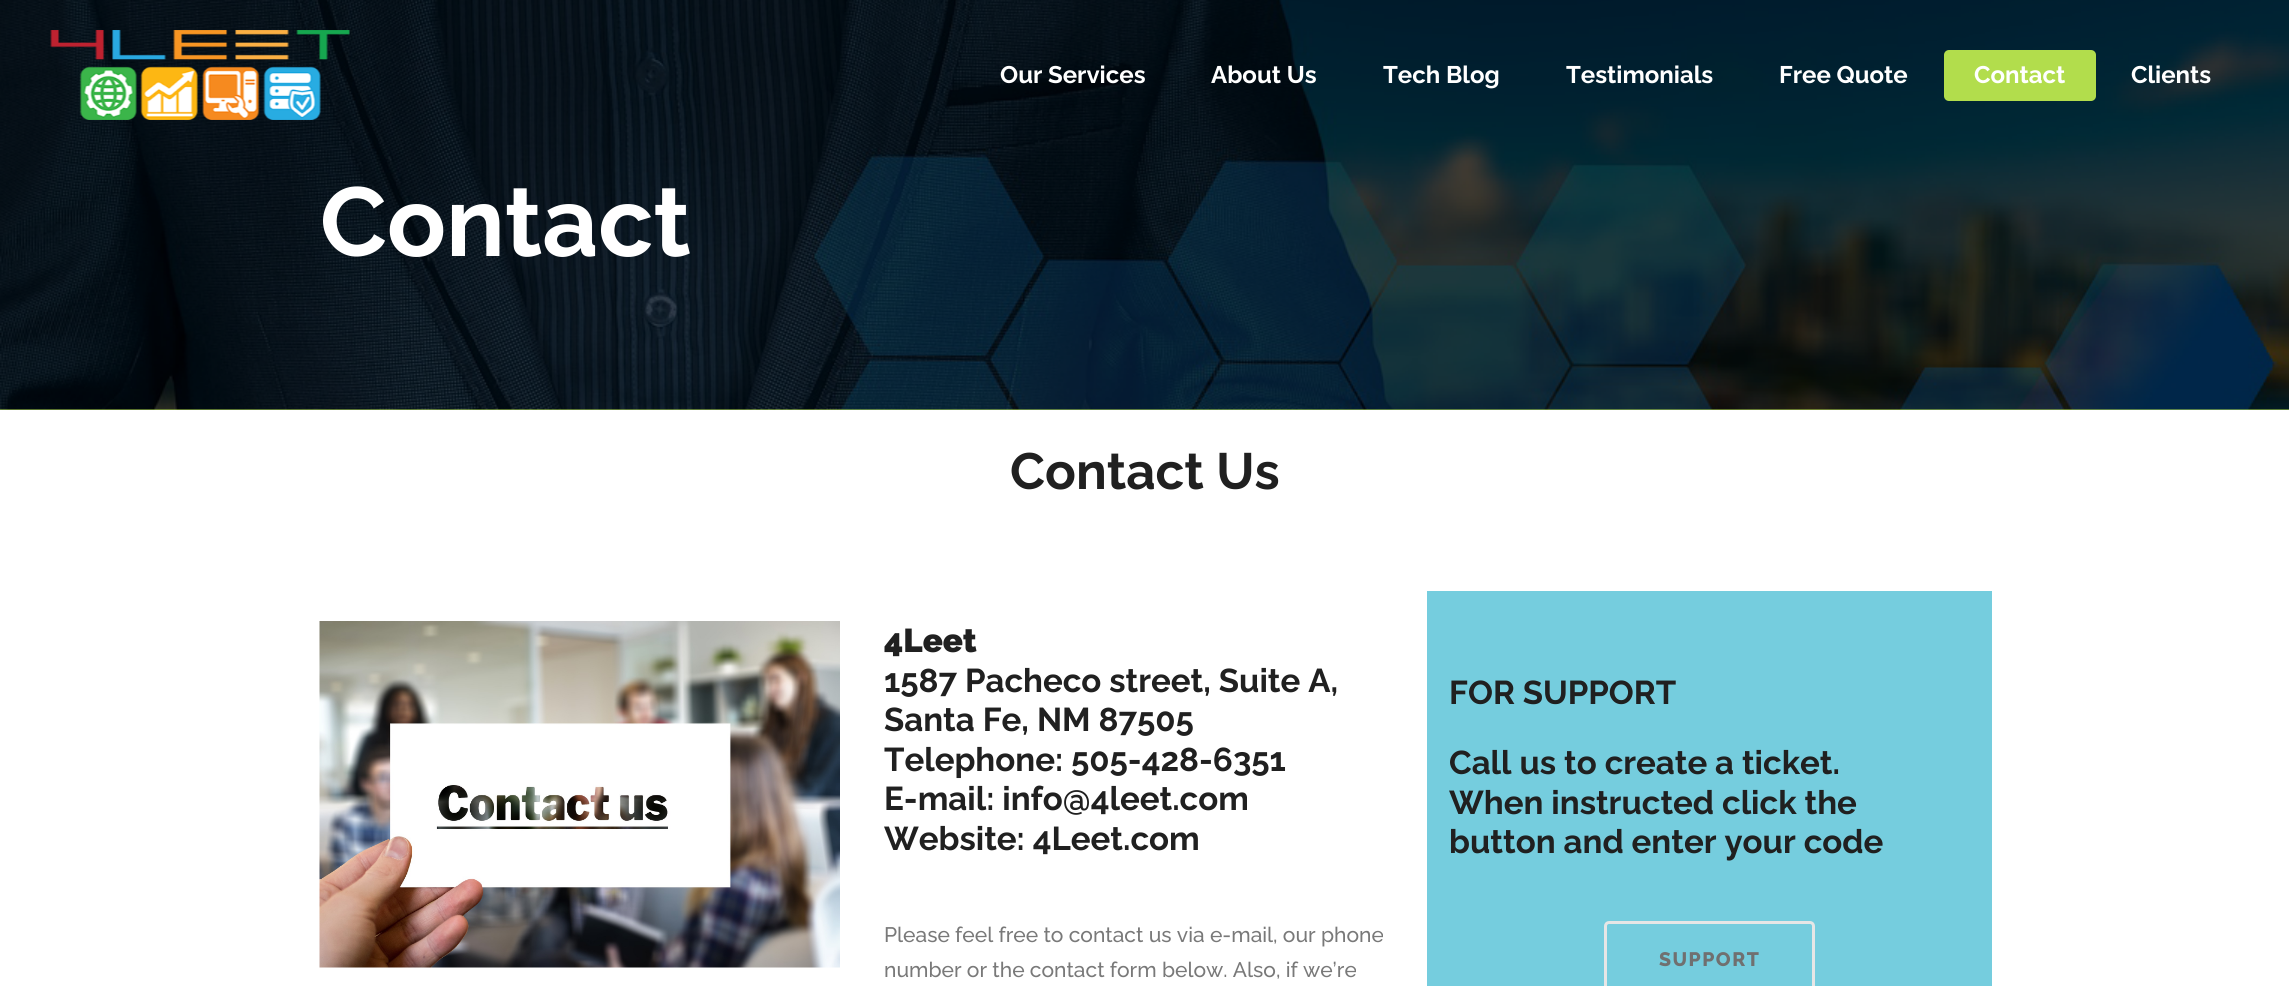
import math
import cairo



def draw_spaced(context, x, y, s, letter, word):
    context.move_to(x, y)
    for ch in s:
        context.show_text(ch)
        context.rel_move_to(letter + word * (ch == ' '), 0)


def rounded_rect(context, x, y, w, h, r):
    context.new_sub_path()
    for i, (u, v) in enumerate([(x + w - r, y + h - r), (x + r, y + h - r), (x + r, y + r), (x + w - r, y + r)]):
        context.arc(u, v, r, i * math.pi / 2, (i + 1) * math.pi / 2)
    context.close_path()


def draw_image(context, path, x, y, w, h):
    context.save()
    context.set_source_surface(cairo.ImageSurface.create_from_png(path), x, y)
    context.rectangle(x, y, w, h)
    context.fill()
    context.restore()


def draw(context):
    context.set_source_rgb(1, 1, 1)
    context.paint()
    context.set_source_rgb(178 / 255, 221 / 255, 76 / 255)
    context.rectangle(0, 409, 2289, 1)
    context.fill()
    draw_image(context, "images/2.png", 0, 0, 2289, 410)
    draw_image(context, "images/1.png", 50, 30, 300, 90)
    rounded_rect(context, 1944, 50, 152, 51, 5)
    context.fill()
    draw_image(context, "images/3.png", 319, 621, 521, 347)
    context.set_source_rgb(117 / 255, 205 / 255, 222 / 255)
    context.rectangle(1427, 591, 565, 395)
    context.fill()
    rounded_rect(context, 1605.5, 922.5, 208, 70, 3.5)
    context.set_source_rgb(230 / 255, 230 / 255, 230 / 255)
    context.set_line_width(3)
    context.stroke()
    context.select_font_face("Raleway", cairo.FontSlant.NORMAL, cairo.FontWeight.BOLD)
    context.set_font_size(24)
    context.set_source_rgb(1, 1, 1)
    context.move_to(1000, 83)
    context.show_text("Our Services")
    context.move_to(1211, 83)
    context.show_text("About Us")
    context.move_to(1383, 83)
    context.show_text("Tech Blog")
    context.move_to(1566, 83)
    context.show_text("Testimonials")
    context.move_to(1779, 83)
    context.show_text("Free Quote")
    context.move_to(1974, 83)
    context.show_text("Contact")
    context.move_to(2131, 83)
    context.show_text("Clients")
    context.set_font_size(97.5)
    context.move_to(320, 256)
    context.show_text("Contact")
    context.set_font_size(51)
    context.set_source_rgb(32 / 255, 32 / 255, 32 / 255)
    context.move_to(1010, 489)
    context.show_text("Contact Us")
    context.select_font_face("Raleway Black")
    context.set_font_size(33)
    context.move_to(884, 652)
    context.show_text("4Leet")
    context.select_font_face("Raleway", cairo.FontSlant.NORMAL, cairo.FontWeight.BOLD)
    context.move_to(884, 692)
    context.show_text("1587 Pacheco street, Suite A,")
    context.move_to(884, 731)
    context.show_text("Santa Fe, NM 87505")
    context.move_to(884, 771)
    context.show_text("Telephone: 505-428-6351")
    context.move_to(884, 810)
    context.show_text("E-mail: info@4leet.com")
    context.move_to(884, 850)
    context.show_text("Website: 4Leet.com")
    context.select_font_face("Raleway Medium")
    context.set_font_size(21)
    context.set_source_rgb(121 / 255, 121 / 255, 121 / 255)
    context.move_to(884, 942)
    context.show_text("Please feel free to contact us via e-mail, our phone")
    context.move_to(884, 977)
    context.show_text("number or the contact form below. Also, if we’re")
    context.select_font_face("Raleway", cairo.FontSlant.NORMAL, cairo.FontWeight.BOLD)
    context.set_font_size(33)
    context.set_source_rgb(32 / 255, 32 / 255, 32 / 255)
    context.move_to(1449, 704)
    context.show_text("FOR SUPPORT")
    context.move_to(1449, 774)
    context.show_text("Call us to create a ticket.")
    context.move_to(1449, 814)
    context.show_text("When instructed click the")
    context.move_to(1449, 853)
    context.show_text("button and enter your code")
    context.select_font_face("Raleway ExtraBold")
    context.set_font_size(19.5)
    context.set_source_rgb(112 / 255, 112 / 255, 112 / 255)
    draw_spaced(context, 1659, 966, "SUPPORT", 1.5, 0)


surface = cairo.ImageSurface(cairo.Format.RGB24, 2289, 986)
context = cairo.Context(surface)
options = cairo.FontOptions()
options.set_hint_metrics(cairo.HintMetrics.OFF)
options.set_hint_style(cairo.HintStyle.NONE)
context.set_font_options(options)
context.set_miter_limit(4)
draw(context)
surface.write_to_png("out.png")
